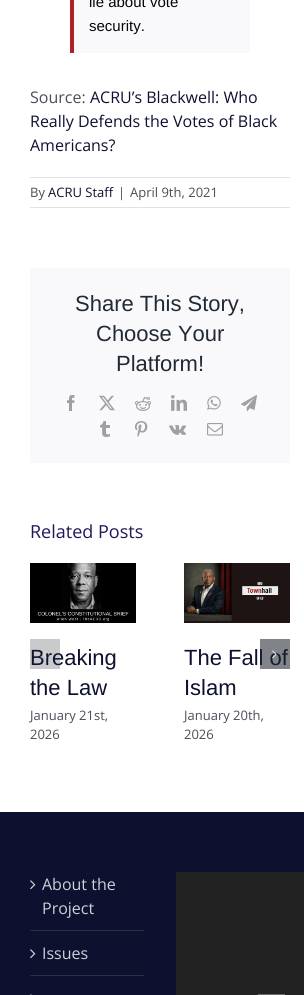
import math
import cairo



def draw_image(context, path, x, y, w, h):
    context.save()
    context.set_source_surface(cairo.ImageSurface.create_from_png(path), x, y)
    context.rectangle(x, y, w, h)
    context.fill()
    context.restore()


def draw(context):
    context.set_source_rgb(1, 1, 1)
    context.paint()
    context.set_source_rgb(249 / 255, 249 / 255, 251 / 255)
    context.rectangle(74, 0, 176, 53)
    context.fill()
    context.set_source_rgb(173 / 255, 35 / 255, 36 / 255)
    context.rectangle(70, 0, 4, 53)
    context.fill()
    context.set_source_rgb(226 / 255, 226 / 255, 226 / 255)
    context.rectangle(30, 177, 260, 1)
    context.fill()
    context.rectangle(30, 207, 260, 1)
    context.fill()
    context.set_source_rgb(249 / 255, 249 / 255, 251 / 255)
    context.rectangle(30, 268, 260, 195)
    context.fill()
    draw_image(context, "images/1.png", 67, 395, 8, 16)
    draw_image(context, "images/2.png", 99, 395, 16, 16)
    draw_image(context, "images/3.png", 135, 397, 16, 14)
    draw_image(context, "images/4.png", 171, 395, 16, 16)
    draw_image(context, "images/5.png", 207, 396, 14, 14)
    draw_image(context, "images/6.png", 241, 395, 16, 16)
    draw_image(context, "images/7.png", 100, 421, 10, 16)
    draw_image(context, "images/8.png", 134, 421, 14, 16)
    draw_image(context, "images/9.png", 169, 425, 18, 10)
    draw_image(context, "images/10.png", 207, 423, 16, 13)
    draw_image(context, "images/13.png", 30, 563, 106, 60)
    draw_image(context, "images/14.png", 184, 563, 106, 60)
    context.set_source_rgb(14 / 255, 16 / 255, 48 / 255)
    context.rectangle(0, 812, 304, 183)
    context.fill()
    context.set_source_rgb(38 / 255, 48 / 255, 62 / 255)
    context.rectangle(30, 930, 114, 1)
    context.fill()
    draw_image(context, "images/15.png", 30, 880, 6, 10)
    context.rectangle(30, 975, 114, 1)
    context.fill()
    draw_image(context, "images/15.png", 30, 949, 6, 10)
    draw_image(context, "images/16.png", 30, 994, 2, 1)
    context.set_source_rgb(34 / 255, 34 / 255, 34 / 255)
    context.rectangle(176, 872, 128, 123)
    context.fill()
    context.set_source_rgb(107 / 255, 107 / 255, 107 / 255)
    context.rectangle(258, 994, 27, 1)
    context.fill()
    context.select_font_face("Liberation Sans")
    context.set_font_size(15)
    context.set_source_rgb(5 / 255, 5 / 255, 5 / 255)
    context.move_to(89, 7)
    context.show_text("lie about vote")
    context.move_to(89, 31)
    context.show_text("security.")
    context.select_font_face("Open Sans")
    context.set_font_size(16)
    context.set_source_rgb(74 / 255, 78 / 255, 87 / 255)
    context.move_to(30, 103)
    context.show_text("Source:")
    context.set_source_rgb(14 / 255, 16 / 255, 48 / 255)
    context.move_to(90, 103)
    context.show_text("ACRU’s Blackwell: Who")
    context.move_to(30, 127)
    context.show_text("Really Defends the Votes of Black")
    context.move_to(30, 151)
    context.show_text("Americans?")
    context.set_font_size(13)
    context.set_source_rgb(74 / 255, 78 / 255, 87 / 255)
    context.move_to(30, 197)
    context.show_text("By")
    context.set_source_rgb(14 / 255, 16 / 255, 48 / 255)
    context.move_to(48, 197)
    context.show_text("ACRU Staff")
    context.set_source_rgb(74 / 255, 78 / 255, 87 / 255)
    context.move_to(118, 197)
    context.show_text("|")
    context.move_to(130, 197)
    context.show_text("April 9th, 2021")
    context.select_font_face("Liberation Sans")
    context.set_font_size(22)
    context.set_source_rgb(33 / 255, 41 / 255, 52 / 255)
    context.move_to(75, 311)
    context.show_text("Share This Story,")
    context.move_to(96, 341)
    context.show_text("Choose Your")
    context.move_to(116, 371)
    context.show_text("Platform!")
    context.select_font_face("Open Sans")
    context.set_font_size(18)
    context.set_source_rgb(30 / 255, 23 / 255, 92 / 255)
    context.move_to(30, 538)
    context.show_text("Related Posts")
    context.select_font_face("Liberation Sans")
    context.set_font_size(22)
    context.set_source_rgb(14 / 255, 16 / 255, 48 / 255)
    context.move_to(30, 665)
    context.show_text("Breaking")
    context.set_source_rgba(29 / 255, 36 / 255, 45 / 255, 0.24)
    context.rectangle(30, 639, 30, 30)
    context.fill()
    draw_image(context, "images/11.png", 42, 650, 5, 9)
    context.set_source_rgb(14 / 255, 16 / 255, 48 / 255)
    context.move_to(30, 695)
    context.show_text("the Law")
    context.select_font_face("Open Sans")
    context.set_font_size(13)
    context.set_source_rgb(74 / 255, 78 / 255, 87 / 255)
    context.move_to(30, 720)
    context.show_text("January 21st,")
    context.move_to(30, 739)
    context.show_text("2026")
    context.select_font_face("Liberation Sans")
    context.set_font_size(22)
    context.set_source_rgb(14 / 255, 16 / 255, 48 / 255)
    context.move_to(184, 665)
    context.show_text("The Fall of")
    context.set_source_rgba(29 / 255, 36 / 255, 45 / 255, 0.56)
    context.rectangle(260, 639, 30, 30)
    context.fill()
    draw_image(context, "images/12.png", 272, 650, 5, 9)
    context.set_source_rgb(14 / 255, 16 / 255, 48 / 255)
    context.move_to(184, 695)
    context.show_text("Islam")
    context.select_font_face("Open Sans")
    context.set_font_size(13)
    context.set_source_rgb(74 / 255, 78 / 255, 87 / 255)
    context.move_to(184, 720)
    context.show_text("January 20th,")
    context.move_to(184, 739)
    context.show_text("2026")
    context.set_font_size(16)
    context.set_source_rgb(207 / 255, 207 / 255, 214 / 255)
    context.move_to(42, 890)
    context.show_text("About the")
    context.move_to(42, 914)
    context.show_text("Project")
    context.move_to(42, 959)
    context.show_text("Issues")


surface = cairo.ImageSurface(cairo.Format.RGB24, 304, 995)
context = cairo.Context(surface)
options = cairo.FontOptions()
options.set_hint_metrics(cairo.HintMetrics.OFF)
options.set_hint_style(cairo.HintStyle.NONE)
context.set_font_options(options)
context.set_miter_limit(4)
draw(context)
surface.write_to_png("out.png")
